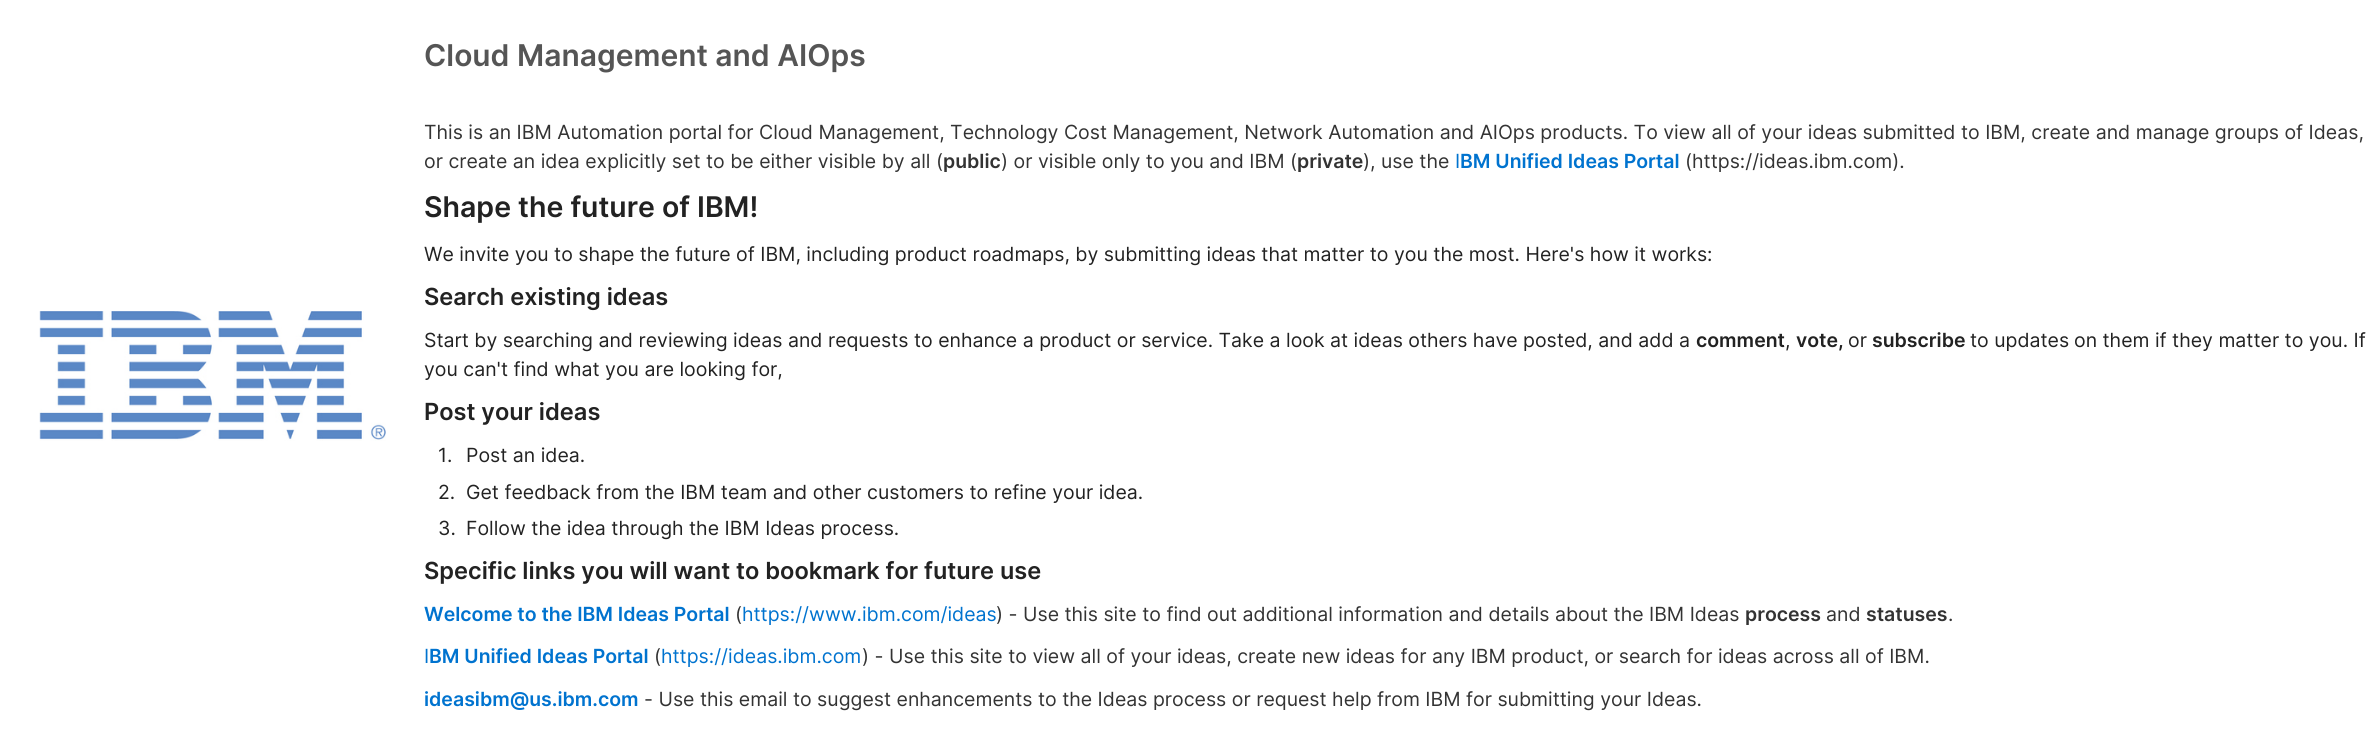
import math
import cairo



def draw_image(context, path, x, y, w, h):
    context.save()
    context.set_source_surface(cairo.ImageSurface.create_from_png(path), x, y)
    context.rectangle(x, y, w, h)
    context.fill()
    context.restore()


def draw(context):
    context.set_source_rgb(1, 1, 1)
    context.paint()
    draw_image(context, "images/1.png", 39, 311, 347, 130)
    context.select_font_face("Inter SemiBold")
    context.set_font_size(30)
    context.set_source_rgb(85 / 255, 85 / 255, 85 / 255)
    context.move_to(424, 66)
    context.show_text("Cloud Management and AIOps")
    context.select_font_face("Inter")
    context.set_font_size(19.5)
    context.set_source_rgb(51 / 255, 51 / 255, 51 / 255)
    context.move_to(424, 139)
    context.show_text("This is an IBM Automation portal for Cloud Management, Technology Cost Management, Network Automation and AIOps products. To view all of your ideas submitted to IBM, create and manage groups of Ideas,")
    context.move_to(424, 168)
    context.show_text("or create an idea explicitly set to be either visible by all (")
    context.select_font_face("Inter SemiBold")
    context.move_to(943, 168)
    context.show_text("public")
    context.select_font_face("Inter")
    context.move_to(1001, 168)
    context.show_text(") or visible only to you and IBM (")
    context.select_font_face("Inter SemiBold")
    context.move_to(1297, 168)
    context.show_text("private")
    context.select_font_face("Inter")
    context.move_to(1363, 168)
    context.show_text("), use the")
    context.set_source_rgb(0, 115 / 255, 207 / 255)
    context.move_to(1455, 168)
    context.show_text("I")
    context.select_font_face("Inter SemiBold")
    context.move_to(1460, 168)
    context.show_text("BM Unified Ideas Portal")
    context.select_font_face("Inter")
    context.set_source_rgb(51 / 255, 51 / 255, 51 / 255)
    context.move_to(1685, 168)
    context.show_text("(https://ideas.ibm.com).")
    context.select_font_face("Inter SemiBold")
    context.set_font_size(28.5)
    context.set_source_rgb(34 / 255, 34 / 255, 34 / 255)
    context.move_to(424, 217)
    context.show_text("Shape the future of IBM!")
    context.select_font_face("Inter")
    context.set_font_size(19.5)
    context.move_to(424, 261)
    context.show_text("We invite you to shape the future of IBM, including product roadmaps, by submitting ideas that matter to you the most. Here's how it works:")
    context.select_font_face("Inter SemiBold")
    context.set_font_size(23.6)
    context.move_to(424, 305)
    context.show_text("Search existing ideas")
    context.select_font_face("Inter")
    context.set_font_size(19.5)
    context.move_to(424, 347)
    context.show_text("Start by searching and reviewing ideas and requests to enhance a product or service. Take a look at ideas others have posted, and add a")
    context.select_font_face("Inter SemiBold")
    context.move_to(1696, 347)
    context.show_text("comment")
    context.select_font_face("Inter")
    context.move_to(1785, 347)
    context.show_text(",")
    context.select_font_face("Inter SemiBold")
    context.move_to(1796, 347)
    context.show_text("vote,")
    context.select_font_face("Inter")
    context.move_to(1848, 347)
    context.show_text("or")
    context.select_font_face("Inter SemiBold")
    context.move_to(1872, 347)
    context.show_text("subscribe")
    context.select_font_face("Inter")
    context.move_to(1970, 347)
    context.show_text("to updates")
    context.move_to(2074, 347)
    context.show_text("on them if they matter to you. If")
    context.move_to(424, 376)
    context.show_text("you can't find what you are looking for,")
    context.select_font_face("Inter SemiBold")
    context.set_font_size(23.6)
    context.move_to(424, 420)
    context.show_text("Post your ideas")
    context.select_font_face("Inter")
    context.set_font_size(19.5)
    context.move_to(438, 462)
    context.show_text("1.")
    context.move_to(466, 462)
    context.show_text("Post an idea.")
    context.move_to(438, 499)
    context.show_text("2.")
    context.move_to(466, 499)
    context.show_text("Get feedback from the IBM team and other customers to refine your idea.")
    context.move_to(438, 535)
    context.show_text("3.")
    context.move_to(466, 535)
    context.show_text("Follow the idea through the IBM Ideas process.")
    context.select_font_face("Inter SemiBold")
    context.set_font_size(23.6)
    context.move_to(424, 579)
    context.show_text("Specific links you will want to bookmark for future use")
    context.set_font_size(19.5)
    context.set_source_rgb(0, 115 / 255, 207 / 255)
    context.move_to(424, 621)
    context.show_text("Welcome to the IBM Ideas Portal")
    context.select_font_face("Inter")
    context.set_source_rgb(51 / 255, 51 / 255, 51 / 255)
    context.move_to(735, 621)
    context.show_text("(")
    context.set_source_rgb(0, 115 / 255, 207 / 255)
    context.move_to(742, 621)
    context.show_text("https://www.ibm.com/ideas")
    context.set_source_rgb(51 / 255, 51 / 255, 51 / 255)
    context.move_to(996, 621)
    context.show_text(") - Use this site to find out additional information and details about the IBM Ideas")
    context.select_font_face("Inter SemiBold")
    context.move_to(1745, 621)
    context.show_text("process")
    context.select_font_face("Inter")
    context.move_to(1826, 621)
    context.show_text("and")
    context.select_font_face("Inter SemiBold")
    context.move_to(1866, 621)
    context.show_text("statuses")
    context.select_font_face("Inter")
    context.move_to(1948, 621)
    context.show_text(".")
    context.set_source_rgb(0, 115 / 255, 207 / 255)
    context.move_to(424, 663)
    context.show_text("I")
    context.select_font_face("Inter SemiBold")
    context.move_to(429, 663)
    context.show_text("BM Unified Ideas Portal")
    context.select_font_face("Inter")
    context.set_source_rgb(51 / 255, 51 / 255, 51 / 255)
    context.move_to(654, 663)
    context.show_text("(")
    context.set_source_rgb(0, 115 / 255, 207 / 255)
    context.move_to(661, 663)
    context.show_text("https://ideas.ibm.com")
    context.set_source_rgb(51 / 255, 51 / 255, 51 / 255)
    context.move_to(862, 663)
    context.show_text(") - Use this site to view all of your ideas, create new ideas for any IBM product, or search for ideas across all of IBM.")
    context.select_font_face("Inter SemiBold")
    context.set_source_rgb(0, 115 / 255, 207 / 255)
    context.move_to(424, 706)
    context.show_text("ideasibm@us.ibm.com")
    context.select_font_face("Inter")
    context.set_source_rgb(51 / 255, 51 / 255, 51 / 255)
    context.move_to(644, 706)
    context.show_text("- Use this email to suggest enhancements to the Ideas process or request help from IBM for submitting your Ideas.")


surface = cairo.ImageSurface(cairo.Format.RGB24, 2371, 730)
context = cairo.Context(surface)
options = cairo.FontOptions()
options.set_hint_metrics(cairo.HintMetrics.OFF)
options.set_hint_style(cairo.HintStyle.NONE)
context.set_font_options(options)
context.set_miter_limit(4)
draw(context)
surface.write_to_png("out.png")
